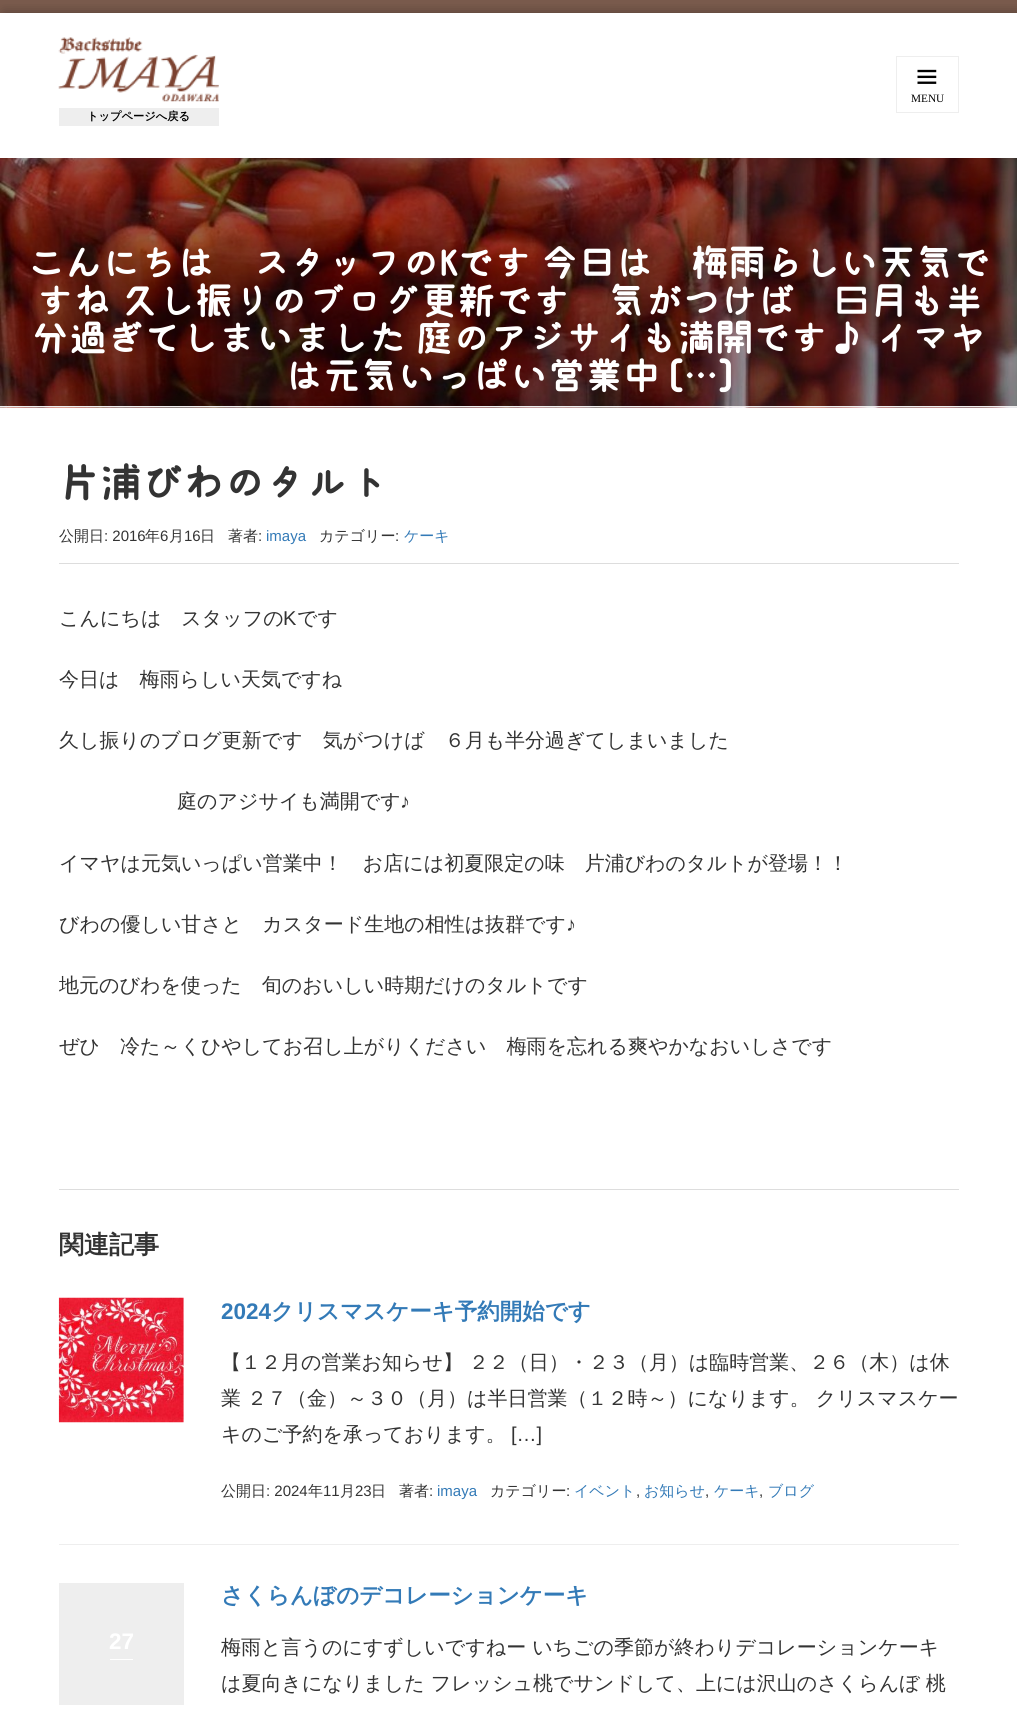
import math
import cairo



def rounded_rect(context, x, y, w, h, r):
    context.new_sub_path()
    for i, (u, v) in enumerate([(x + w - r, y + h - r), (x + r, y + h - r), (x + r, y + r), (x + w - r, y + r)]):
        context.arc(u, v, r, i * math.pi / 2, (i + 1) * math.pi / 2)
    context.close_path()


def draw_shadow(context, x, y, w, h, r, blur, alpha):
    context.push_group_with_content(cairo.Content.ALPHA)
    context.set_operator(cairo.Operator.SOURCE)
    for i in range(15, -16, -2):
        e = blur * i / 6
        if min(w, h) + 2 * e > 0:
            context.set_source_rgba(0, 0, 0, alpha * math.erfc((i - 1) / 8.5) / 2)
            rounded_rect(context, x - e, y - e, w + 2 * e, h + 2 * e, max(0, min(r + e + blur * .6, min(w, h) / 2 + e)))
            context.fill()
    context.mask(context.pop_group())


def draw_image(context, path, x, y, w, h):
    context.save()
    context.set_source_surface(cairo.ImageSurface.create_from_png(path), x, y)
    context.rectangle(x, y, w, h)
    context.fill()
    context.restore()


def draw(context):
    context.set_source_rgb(1, 1, 1)
    context.paint()
    context.set_source_rgb(121 / 255, 90 / 255, 76 / 255)
    context.rectangle(0, 0, 1017, 13)
    context.fill()
    context.save()
    context.rectangle(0, 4, 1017, 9)
    context.clip()
    context.set_source_rgb(0, 0, 0)
    draw_shadow(context, 4, 13, 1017, 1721, 0, 6, 0.3)
    context.restore()
    context.rectangle(896.5, 56.5, 62, 56)
    context.set_source_rgb(238 / 255, 238 / 255, 238 / 255)
    context.set_line_width(1)
    context.stroke()
    draw_image(context, "images/1.png", 917, 69, 20, 15)
    draw_image(context, "images/2.png", 58, 37, 161, 65)
    context.rectangle(59, 108, 160, 18)
    context.fill()
    draw_image(context, "images/3.png", 0, 158, 1017, 250)
    context.rectangle(0, 406, 1017, 1)
    context.fill()
    context.set_source_rgb(221 / 255, 221 / 255, 221 / 255)
    context.rectangle(59, 563, 900, 1)
    context.fill()
    context.rectangle(59, 1189, 900, 1)
    context.fill()
    context.set_source_rgb(238 / 255, 238 / 255, 238 / 255)
    context.rectangle(59, 1544, 900, 1)
    context.fill()
    draw_image(context, "images/4.png", 58, 1297, 126, 126)
    context.rectangle(59, 1583, 125, 122)
    context.fill()
    context.set_source_rgb(1, 1, 1)
    context.rectangle(110, 1659, 23, 1)
    context.fill()
    context.select_font_face("Liberation Serif")
    context.set_font_size(11.25)
    context.set_source_rgb(0, 0, 0)
    context.move_to(911, 102)
    context.show_text("MENU")
    context.select_font_face("WenQuanYi Zen Hei", cairo.FontSlant.NORMAL, cairo.FontWeight.BOLD)
    context.move_to(87, 120)
    context.show_text("トップページへ戻る")
    context.select_font_face("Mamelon", cairo.FontSlant.NORMAL, cairo.FontWeight.BOLD)
    context.set_font_size(37.5)
    context.set_source_rgb(1, 1, 1)
    context.move_to(27, 277)
    context.show_text("こんにちは　スタッフのKです 今日は　梅雨らしい天気で")
    context.move_to(36, 315)
    context.show_text("すね 久し振りのブログ更新です　気がつけば　６月も半")
    context.move_to(31, 352)
    context.show_text("分過ぎてしまいました 庭のアジサイも満開です♪ イマヤ")
    context.move_to(285, 390)
    context.show_text("は元気いっぱい営業中 […]")
    context.set_font_size(41.25)
    context.set_source_rgb(51 / 255, 51 / 255, 51 / 255)
    context.move_to(59, 498)
    context.show_text("片浦びわのタルト")
    context.select_font_face("WenQuanYi Zen Hei Medium")
    context.set_font_size(15)
    context.move_to(59, 541)
    context.show_text("公開日")
    context.select_font_face("Liberation Sans")
    context.move_to(104, 541)
    context.show_text(": 2016")
    context.select_font_face("WenQuanYi Zen Hei Medium")
    context.move_to(145, 541)
    context.show_text("年")
    context.select_font_face("Liberation Sans")
    context.move_to(160, 541)
    context.show_text("6")
    context.select_font_face("WenQuanYi Zen Hei Medium")
    context.move_to(169, 541)
    context.show_text("月")
    context.select_font_face("Liberation Sans")
    context.move_to(184, 541)
    context.show_text("16")
    context.select_font_face("WenQuanYi Zen Hei Medium")
    context.move_to(200, 541)
    context.show_text("日")
    context.move_to(228, 541)
    context.show_text("著者")
    context.select_font_face("Liberation Sans")
    context.move_to(258, 541)
    context.show_text(":")
    context.set_source_rgb(51 / 255, 122 / 255, 183 / 255)
    context.move_to(266, 541)
    context.show_text("imaya")
    context.select_font_face("WenQuanYi Zen Hei Medium")
    context.set_source_rgb(51 / 255, 51 / 255, 51 / 255)
    context.move_to(319, 541)
    context.show_text("カテゴリー")
    context.select_font_face("Liberation Sans")
    context.move_to(395, 541)
    context.show_text(":")
    context.select_font_face("WenQuanYi Zen Hei Medium")
    context.set_source_rgb(51 / 255, 122 / 255, 183 / 255)
    context.move_to(404, 541)
    context.show_text("ケーキ")
    context.set_font_size(20)
    context.set_source_rgb(51 / 255, 51 / 255, 51 / 255)
    context.move_to(59, 625)
    context.show_text("こんにちは　スタッフの")
    context.select_font_face("Liberation Sans")
    context.move_to(283, 625)
    context.show_text("K")
    context.select_font_face("WenQuanYi Zen Hei Medium")
    context.move_to(297, 625)
    context.show_text("です")
    context.move_to(59, 686)
    context.show_text("今日は　梅雨らしい天気ですね")
    context.move_to(59, 747)
    context.show_text("久し振りのブログ更新です　気がつけば　６月も半分過ぎてしまいました")
    context.move_to(177, 808)
    context.show_text("庭のアジサイも満開です")
    context.select_font_face("Liberation Sans")
    context.move_to(400, 808)
    context.show_text("♪")
    context.select_font_face("WenQuanYi Zen Hei Medium")
    context.move_to(59, 870)
    context.show_text("イマヤは元気いっぱい営業中！　お店には初夏限定の味　片浦びわのタルトが登場！！")
    context.move_to(59, 931)
    context.show_text("びわの優しい甘さと　カスタード生地の相性は抜群です")
    context.select_font_face("Liberation Sans")
    context.move_to(566, 931)
    context.show_text("♪")
    context.select_font_face("WenQuanYi Zen Hei Medium")
    context.move_to(59, 992)
    context.show_text("地元のびわを使った　旬のおいしい時期だけのタルトです")
    context.move_to(59, 1053)
    context.show_text("ぜひ　冷た～くひやしてお召し上がりください　梅雨を忘れる爽やかなおいしさです")
    context.select_font_face("WenQuanYi Zen Hei", cairo.FontSlant.NORMAL, cairo.FontWeight.BOLD)
    context.set_font_size(25)
    context.move_to(59, 1253)
    context.show_text("関連記事")
    context.select_font_face("Liberation Sans", cairo.FontSlant.NORMAL, cairo.FontWeight.BOLD)
    context.set_font_size(22.5)
    context.set_source_rgb(51 / 255, 122 / 255, 183 / 255)
    context.move_to(221, 1319)
    context.show_text("2024")
    context.select_font_face("WenQuanYi Zen Hei", cairo.FontSlant.NORMAL, cairo.FontWeight.BOLD)
    context.move_to(271, 1319)
    context.show_text("クリスマスケーキ予約開始です")
    context.select_font_face("WenQuanYi Zen Hei Medium")
    context.set_font_size(20)
    context.set_source_rgb(51 / 255, 51 / 255, 51 / 255)
    context.move_to(221, 1369)
    context.show_text("【１２月の営業お知らせ】 ２２（日）・２３（月）は臨時営業、２６（木）は休")
    context.move_to(221, 1405)
    context.show_text("業 ２７（金）～３０（月）は半日営業（１２時～）になります。 クリスマスケー")
    context.move_to(221, 1441)
    context.show_text("キのご予約を承っております。")
    context.select_font_face("Liberation Sans")
    context.move_to(511, 1441)
    context.show_text("[…]")
    context.select_font_face("WenQuanYi Zen Hei Medium")
    context.set_font_size(15)
    context.move_to(221, 1496)
    context.show_text("公開日")
    context.select_font_face("Liberation Sans")
    context.move_to(266, 1496)
    context.show_text(": 2024")
    context.select_font_face("WenQuanYi Zen Hei Medium")
    context.move_to(308, 1496)
    context.show_text("年")
    context.select_font_face("Liberation Sans")
    context.move_to(323, 1496)
    context.show_text("11")
    context.select_font_face("WenQuanYi Zen Hei Medium")
    context.move_to(340, 1496)
    context.show_text("月")
    context.select_font_face("Liberation Sans")
    context.move_to(355, 1496)
    context.show_text("23")
    context.select_font_face("WenQuanYi Zen Hei Medium")
    context.move_to(371, 1496)
    context.show_text("日")
    context.move_to(399, 1496)
    context.show_text("著者")
    context.select_font_face("Liberation Sans")
    context.move_to(429, 1496)
    context.show_text(":")
    context.set_source_rgb(51 / 255, 122 / 255, 183 / 255)
    context.move_to(437, 1496)
    context.show_text("imaya")
    context.select_font_face("WenQuanYi Zen Hei Medium")
    context.set_source_rgb(51 / 255, 51 / 255, 51 / 255)
    context.move_to(490, 1496)
    context.show_text("カテゴリー")
    context.select_font_face("Liberation Sans")
    context.move_to(566, 1496)
    context.show_text(":")
    context.select_font_face("WenQuanYi Zen Hei Medium")
    context.set_source_rgb(51 / 255, 122 / 255, 183 / 255)
    context.move_to(574, 1496)
    context.show_text("イベント")
    context.select_font_face("Liberation Sans")
    context.set_source_rgb(51 / 255, 51 / 255, 51 / 255)
    context.move_to(636, 1496)
    context.show_text(",")
    context.select_font_face("WenQuanYi Zen Hei Medium")
    context.set_source_rgb(51 / 255, 122 / 255, 183 / 255)
    context.move_to(644, 1496)
    context.show_text("お知らせ")
    context.select_font_face("Liberation Sans")
    context.set_source_rgb(51 / 255, 51 / 255, 51 / 255)
    context.move_to(705, 1496)
    context.show_text(",")
    context.select_font_face("WenQuanYi Zen Hei Medium")
    context.set_source_rgb(51 / 255, 122 / 255, 183 / 255)
    context.move_to(714, 1496)
    context.show_text("ケーキ")
    context.select_font_face("Liberation Sans")
    context.set_source_rgb(51 / 255, 51 / 255, 51 / 255)
    context.move_to(759, 1496)
    context.show_text(",")
    context.select_font_face("WenQuanYi Zen Hei Medium")
    context.set_source_rgb(51 / 255, 122 / 255, 183 / 255)
    context.move_to(768, 1496)
    context.show_text("ブログ")
    context.select_font_face("Liberation Sans", cairo.FontSlant.NORMAL, cairo.FontWeight.BOLD)
    context.set_font_size(22.5)
    context.set_source_rgb(1, 1, 1)
    context.move_to(109, 1649)
    context.show_text("27")
    context.select_font_face("WenQuanYi Zen Hei", cairo.FontSlant.NORMAL, cairo.FontWeight.BOLD)
    context.set_source_rgb(51 / 255, 122 / 255, 183 / 255)
    context.move_to(221, 1603)
    context.show_text("さくらんぼのデコレーションケーキ")
    context.select_font_face("WenQuanYi Zen Hei Medium")
    context.set_font_size(20)
    context.set_source_rgb(51 / 255, 51 / 255, 51 / 255)
    context.move_to(221, 1654)
    context.show_text("梅雨と言うのにすずしいですねー いちごの季節が終わりデコレーションケーキ")
    context.move_to(221, 1690)
    context.show_text("は夏向きになりました フレッシュ桃でサンドして、上には沢山のさくらんぼ 桃")


surface = cairo.ImageSurface(cairo.Format.RGB24, 1017, 1716)
context = cairo.Context(surface)
options = cairo.FontOptions()
options.set_hint_metrics(cairo.HintMetrics.OFF)
options.set_hint_style(cairo.HintStyle.NONE)
context.set_font_options(options)
context.set_miter_limit(4)
draw(context)
surface.write_to_png("out.png")
